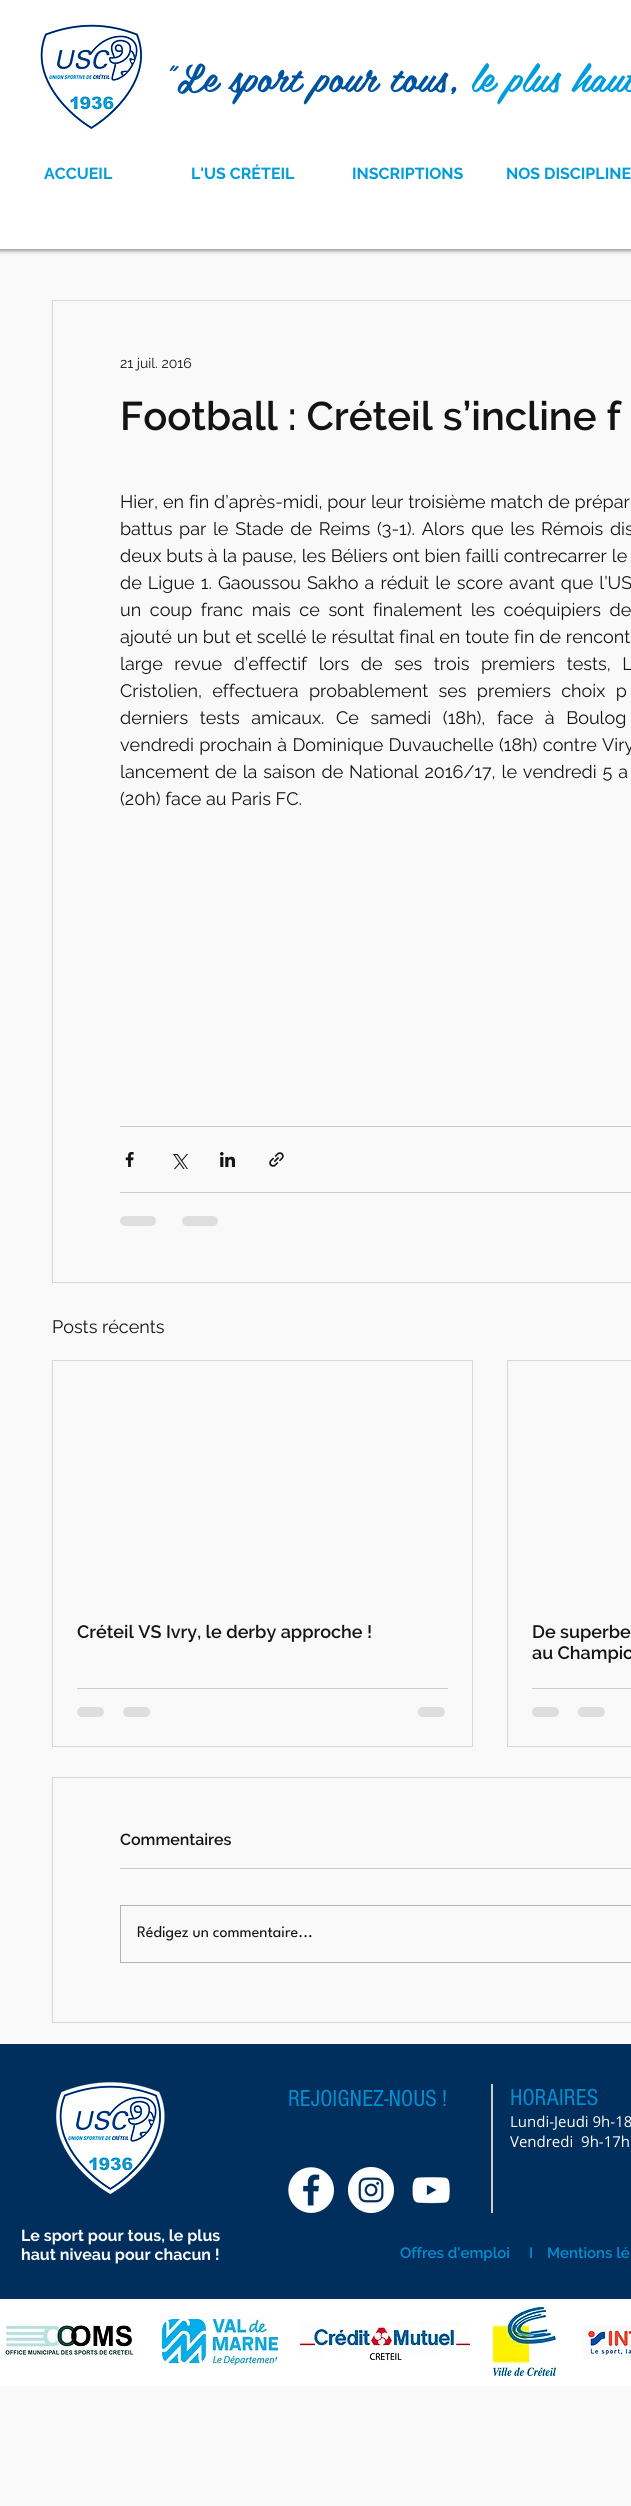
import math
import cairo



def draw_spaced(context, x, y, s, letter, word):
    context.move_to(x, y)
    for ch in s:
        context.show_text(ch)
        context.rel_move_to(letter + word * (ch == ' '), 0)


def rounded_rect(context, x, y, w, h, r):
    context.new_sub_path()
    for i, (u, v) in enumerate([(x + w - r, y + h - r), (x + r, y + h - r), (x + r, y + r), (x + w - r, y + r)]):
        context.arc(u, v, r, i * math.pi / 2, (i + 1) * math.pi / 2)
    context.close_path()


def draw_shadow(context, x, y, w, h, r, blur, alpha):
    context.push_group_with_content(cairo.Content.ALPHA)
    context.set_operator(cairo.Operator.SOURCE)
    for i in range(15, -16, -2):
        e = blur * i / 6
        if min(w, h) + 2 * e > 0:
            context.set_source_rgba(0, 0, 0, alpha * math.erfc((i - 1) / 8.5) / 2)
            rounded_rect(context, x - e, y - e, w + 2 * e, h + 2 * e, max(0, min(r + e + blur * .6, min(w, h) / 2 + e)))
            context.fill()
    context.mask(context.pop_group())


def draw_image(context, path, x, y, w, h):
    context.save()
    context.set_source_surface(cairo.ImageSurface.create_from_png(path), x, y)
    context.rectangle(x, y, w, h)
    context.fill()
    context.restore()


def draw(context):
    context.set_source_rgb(249 / 255, 249 / 255, 249 / 255)
    context.paint()
    context.set_source_rgb(0, 0, 0)
    draw_shadow(context, -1, 0, 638, 251, 0, 2, 0.4)
    context.set_source_rgb(1, 1, 1)
    context.rectangle(0, 0, 631, 249)
    context.fill()
    draw_image(context, "images/1.png", 39, 23, 104, 106)
    context.rectangle(52.5, 300.5, 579, 982)
    context.set_source_rgb(216 / 255, 215 / 255, 215 / 255)
    context.set_line_width(1)
    context.stroke()
    context.set_source_rgb(203 / 255, 203 / 255, 203 / 255)
    context.rectangle(120, 1126, 511, 1)
    context.fill()
    draw_image(context, "images/2.png", 125, 1152, 9, 15)
    draw_image(context, "images/3.png", 173, 1154, 15, 15)
    draw_image(context, "images/4.png", 220, 1152, 15, 15)
    draw_image(context, "images/5.png", 269, 1152, 15, 15)
    context.rectangle(120, 1192, 511, 1)
    context.fill()
    context.set_source_rgb(222 / 255, 222 / 255, 222 / 255)
    rounded_rect(context, 120, 1216, 36, 10, 5)
    context.fill()
    rounded_rect(context, 182, 1216, 36, 10, 5)
    context.fill()
    context.rectangle(52.5, 1360.5, 420, 386)
    context.set_source_rgb(216 / 255, 215 / 255, 215 / 255)
    context.stroke()
    context.set_source_rgb(203 / 255, 203 / 255, 203 / 255)
    context.rectangle(77, 1688, 371, 1)
    context.fill()
    context.set_source_rgb(222 / 255, 222 / 255, 222 / 255)
    rounded_rect(context, 77, 1707, 27, 10, 5)
    context.fill()
    rounded_rect(context, 123, 1707, 27, 10, 5)
    context.fill()
    rounded_rect(context, 418, 1707, 27, 10, 5)
    context.fill()
    context.rectangle(507.5, 1360.5, 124, 386)
    context.set_source_rgb(216 / 255, 215 / 255, 215 / 255)
    context.stroke()
    context.set_source_rgb(203 / 255, 203 / 255, 203 / 255)
    context.rectangle(532, 1688, 99, 1)
    context.fill()
    context.set_source_rgb(222 / 255, 222 / 255, 222 / 255)
    rounded_rect(context, 532, 1707, 27, 10, 5)
    context.fill()
    rounded_rect(context, 578, 1707, 27, 10, 5)
    context.fill()
    context.rectangle(52.5, 1777.5, 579, 245)
    context.set_source_rgb(216 / 255, 215 / 255, 215 / 255)
    context.stroke()
    context.set_source_rgb(203 / 255, 203 / 255, 203 / 255)
    context.rectangle(120, 1868, 511, 1)
    context.fill()
    context.rectangle(120.5, 1905.5, 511, 57)
    context.set_source_rgb(180 / 255, 180 / 255, 180 / 255)
    context.stroke()
    context.set_source_rgb(0, 46 / 255, 93 / 255)
    context.rectangle(0, 2044, 631, 255)
    context.fill()
    draw_image(context, "images/6.png", 56, 2082, 109, 113)
    context.set_source_rgb(205 / 255, 204 / 255, 204 / 255)
    context.rectangle(491, 2084, 2, 129)
    context.fill()
    draw_image(context, "images/7.png", 288, 2167, 46, 46)
    draw_image(context, "images/8.png", 348, 2167, 46, 46)
    draw_image(context, "images/9.png", 412, 2177, 38, 27)
    context.set_source_rgb(1, 1, 1)
    context.rectangle(0, 2299, 631, 87)
    context.fill()
    draw_image(context, "images/10.png", 4, 2322, 130, 36)
    draw_image(context, "images/11.png", 162, 2319, 116, 46)
    draw_image(context, "images/12.png", 300, 2321, 170, 40)
    draw_image(context, "images/13.png", 493, 2307, 63, 69)
    draw_image(context, "images/14.png", 583, 2325, 48, 34)
    context.select_font_face("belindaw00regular")
    context.set_font_size(39)
    context.set_source_rgb(0, 83 / 255, 160 / 255)
    context.move_to(161, 92)
    context.show_text("\"Le sport pour tous,")
    context.set_source_rgb(0, 156 / 255, 219 / 255)
    context.move_to(471, 92)
    context.show_text("le plus haut")
    context.select_font_face("Raleway", cairo.FontSlant.NORMAL, cairo.FontWeight.BOLD)
    context.set_font_size(16)
    context.move_to(44, 179)
    context.show_text("ACCUEIL")
    context.move_to(191, 179)
    context.show_text("L'US CRÉTEIL")
    context.move_to(352, 179)
    context.show_text("INSCRIPTIONS")
    context.move_to(506, 179)
    context.show_text("NOS DISCIPLINE")
    context.select_font_face("Raleway")
    context.set_font_size(14)
    context.set_source_rgb(20 / 255, 20 / 255, 20 / 255)
    context.move_to(120, 368)
    context.show_text("21 juil. 2016")
    context.select_font_face("Raleway SemiBold")
    context.set_font_size(40)
    context.move_to(120, 430)
    context.show_text("Football : Créteil s’incline f")
    context.select_font_face("Raleway")
    context.set_font_size(18)
    draw_spaced(context, 120, 508, "Hier, en fin d’après-midi, pour leur troisième match de prépar", 0, 0.25)
    draw_spaced(context, 120, 535, "battus par le Stade de Reims (3-1). Alors que les Rémois dis", 0, 2.1)
    draw_spaced(context, 120, 562, "deux buts à la pause, les Béliers ont bien failli contrecarrer le", 0, 0.25)
    draw_spaced(context, 120, 589, "de Ligue 1. Gaoussou Sakho a réduit le score avant que l’US", 0, 1.5)
    draw_spaced(context, 120, 616, "un coup franc mais ce sont finalement les coéquipiers de", 0, 4)
    draw_spaced(context, 120, 643, "ajouté un but et scellé le résultat final en toute fin de rencont", 0, 0.25)
    draw_spaced(context, 120, 670, "large revue d’effectif lors de ses trois premiers tests, L", 0, 7)
    draw_spaced(context, 120, 697, "Cristolien, effectuera probablement ses premiers choix p", 0, 5.75)
    draw_spaced(context, 120, 724, "derniers tests amicaux. Ce samedi (18h), face à Boulog", 0, 7)
    draw_spaced(context, 120, 751, "vendredi prochain à Dominique Duvauchelle (18h) contre Viry", 0, 0.75)
    draw_spaced(context, 120, 778, "lancement de la saison de National 2016/17, le vendredi 5 a", 0, 1.25)
    context.move_to(120, 805)
    context.show_text("(20h) face au Paris FC.")
    context.move_to(52, 1333)
    context.show_text("Posts récents")
    context.select_font_face("Raleway SemiBold")
    context.move_to(77, 1638)
    context.show_text("Créteil VS Ivry, le derby approche !")
    context.move_to(532, 1638)
    context.show_text("De superbe")
    context.move_to(532, 1659)
    context.show_text("au Champio")
    context.set_font_size(16)
    context.move_to(120, 1845)
    context.show_text("Commentaires")
    context.select_font_face("League Spartan")
    context.move_to(137, 1937)
    context.show_text("Rédigez un commentaire...")
    context.select_font_face("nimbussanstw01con")
    context.set_font_size(24)
    context.set_source_rgb(0, 144 / 255, 209 / 255)
    context.move_to(288, 2106)
    context.show_text("REJOIGNEZ-NOUS !")
    context.move_to(510, 2105)
    context.show_text("HORAIRES")
    context.select_font_face("Open Sans")
    context.set_font_size(15)
    context.set_source_rgb(1, 1, 1)
    context.move_to(510, 2127)
    context.show_text("Lundi-Jeudi 9h-18")
    context.move_to(510, 2147)
    context.show_text("Vendredi  9h-17h")
    context.select_font_face("Raleway", cairo.FontSlant.NORMAL, cairo.FontWeight.BOLD)
    context.set_font_size(16)
    context.set_source_rgb(249 / 255, 249 / 255, 249 / 255)
    context.move_to(21, 2241)
    context.show_text("Le sport pour tous, le plus")
    context.move_to(21, 2260)
    context.show_text("haut niveau pour chacun !")
    context.select_font_face("Raleway SemiBold")
    context.set_font_size(15)
    context.set_source_rgb(0, 144 / 255, 209 / 255)
    context.move_to(400, 2258)
    context.show_text("Offres d'emploi")
    context.move_to(529, 2258)
    context.show_text("I")
    context.move_to(547, 2258)
    context.show_text("Mentions lé")


surface = cairo.ImageSurface(cairo.Format.RGB24, 631, 2506)
context = cairo.Context(surface)
options = cairo.FontOptions()
options.set_hint_metrics(cairo.HintMetrics.OFF)
options.set_hint_style(cairo.HintStyle.NONE)
context.set_font_options(options)
context.set_miter_limit(4)
draw(context)
surface.write_to_png("out.png")
